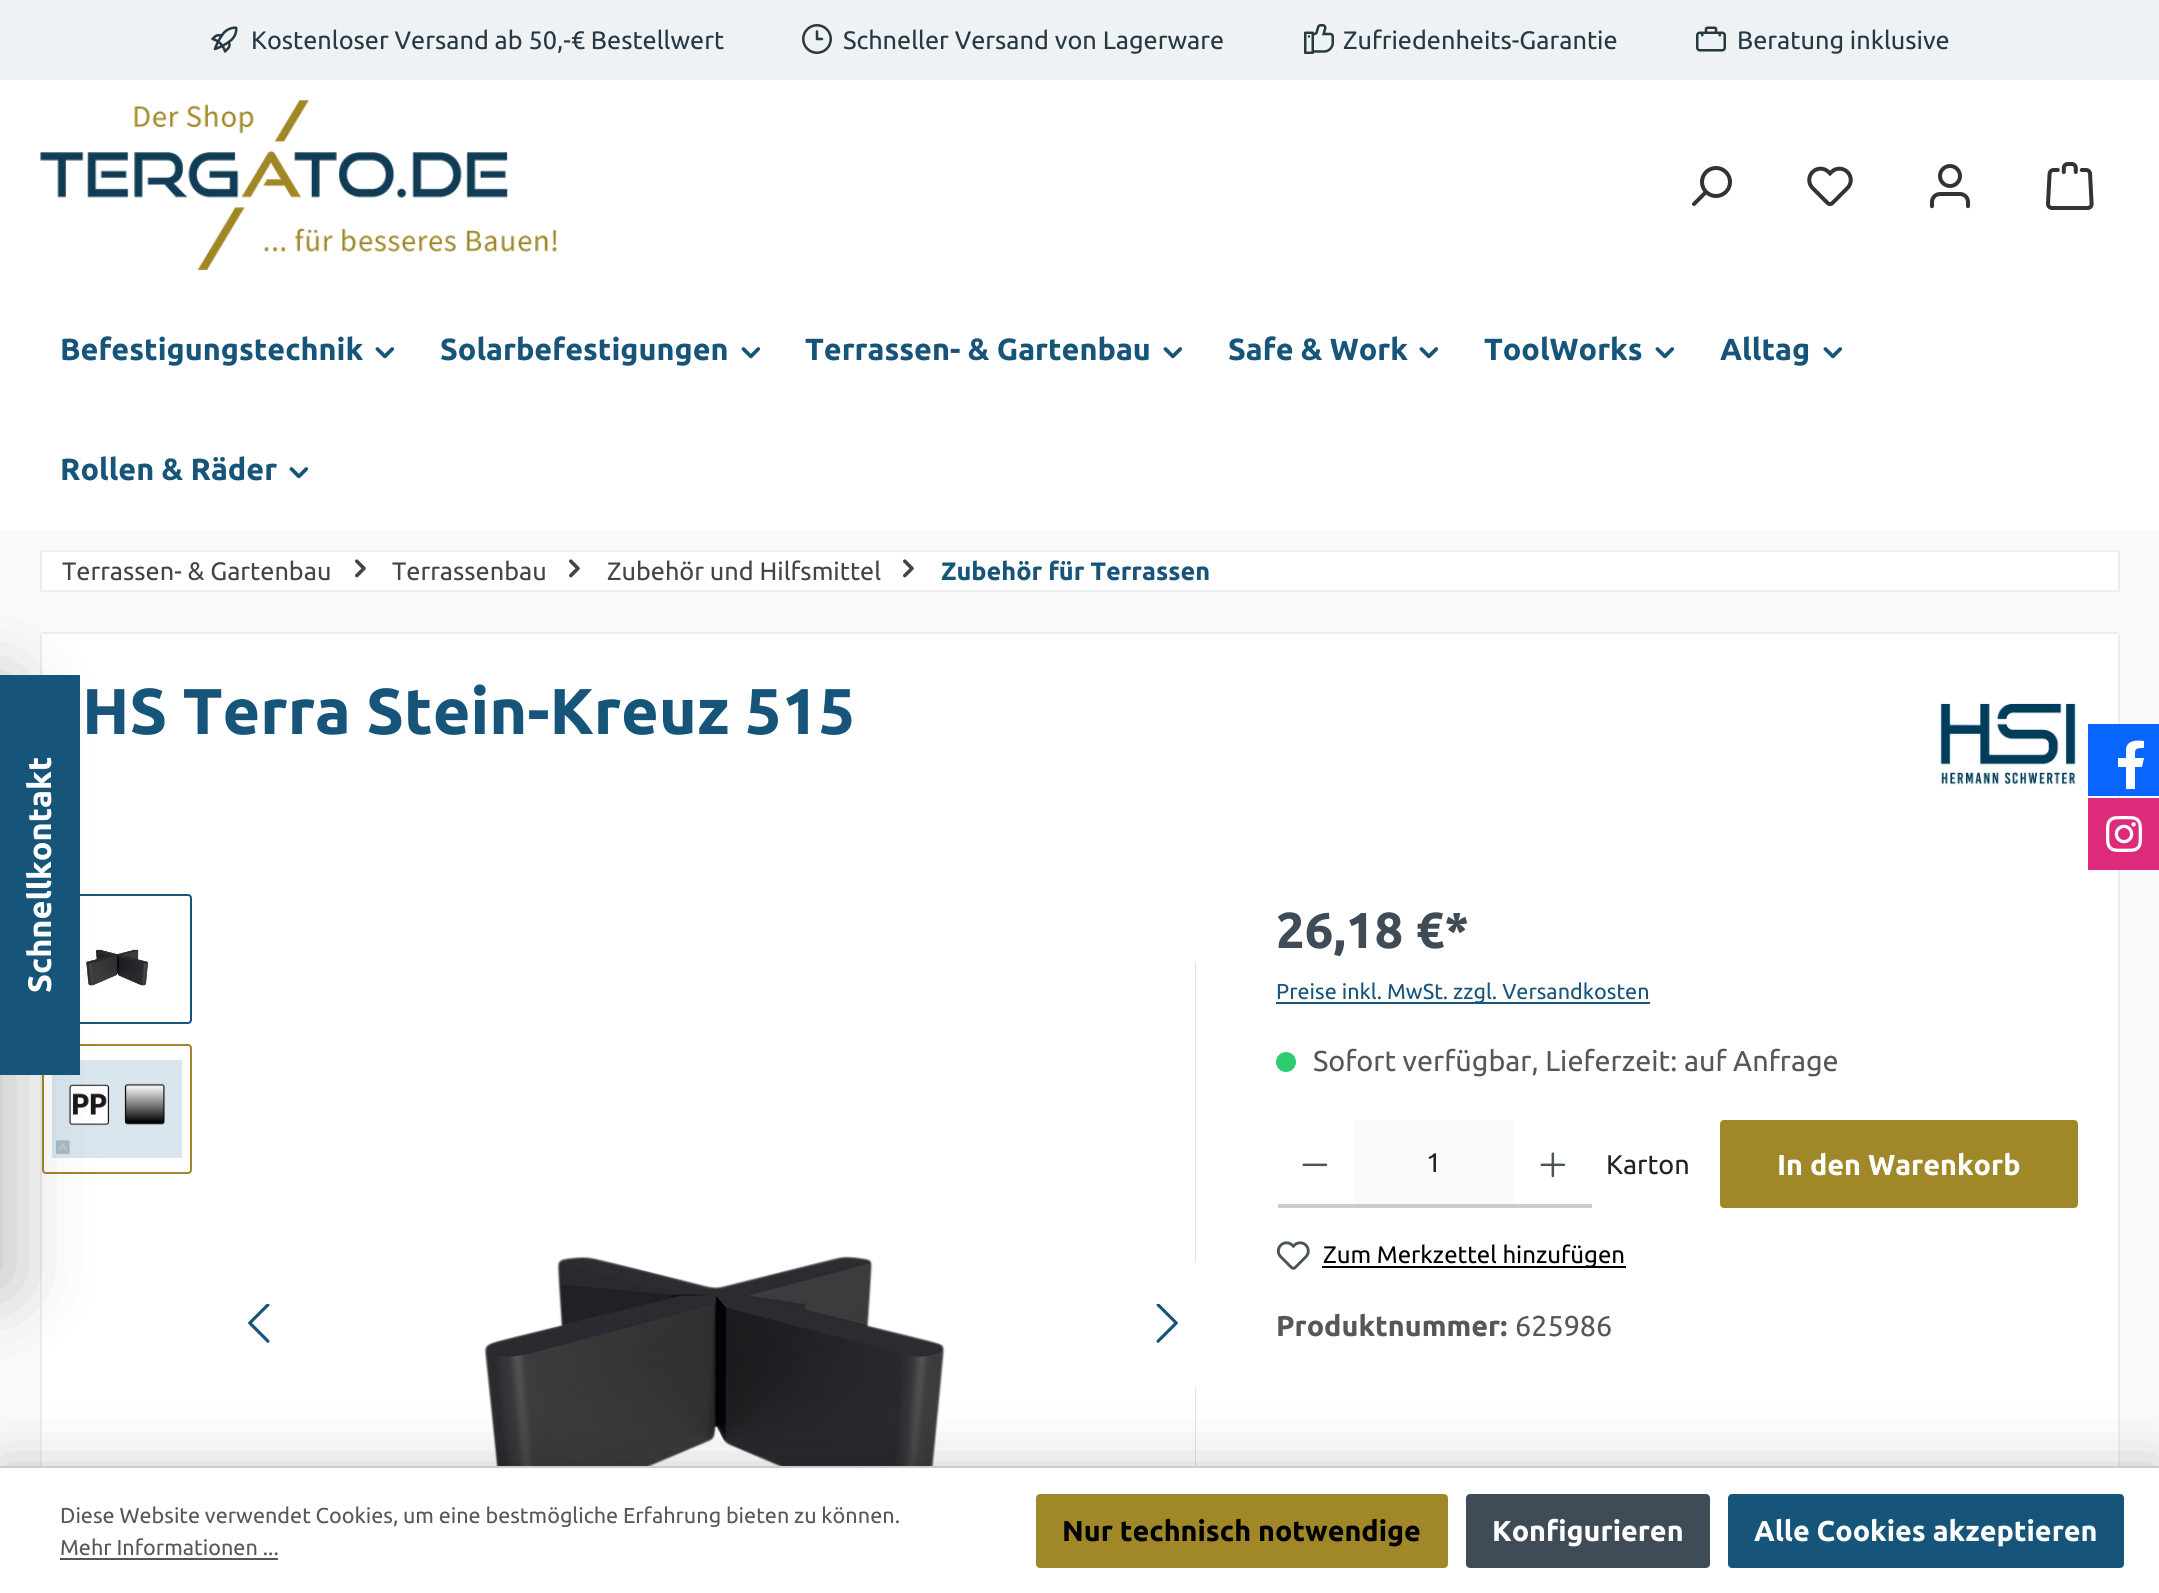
import math
import cairo



def draw_spaced(context, x, y, s, letter, word):
    context.move_to(x, y)
    for ch in s:
        context.show_text(ch)
        context.rel_move_to(letter + word * (ch == ' '), 0)


def rounded_rect(context, x, y, w, h, r):
    context.new_sub_path()
    for i, (u, v) in enumerate([(x + w - r, y + h - r), (x + r, y + h - r), (x + r, y + r), (x + w - r, y + r)]):
        context.arc(u, v, r, i * math.pi / 2, (i + 1) * math.pi / 2)
    context.close_path()


def draw_shadow(context, x, y, w, h, r, blur, alpha):
    context.push_group_with_content(cairo.Content.ALPHA)
    context.set_operator(cairo.Operator.SOURCE)
    for i in range(15, -16, -2):
        e = blur * i / 6
        if min(w, h) + 2 * e > 0:
            context.set_source_rgba(0, 0, 0, alpha * math.erfc((i - 1) / 8.5) / 2)
            rounded_rect(context, x - e, y - e, w + 2 * e, h + 2 * e, max(0, min(r + e + blur * .6, min(w, h) / 2 + e)))
            context.fill()
    context.mask(context.pop_group())


def draw_image(context, path, x, y, w, h):
    context.save()
    context.set_source_surface(cairo.ImageSurface.create_from_png(path), x, y)
    context.rectangle(x, y, w, h)
    context.fill()
    context.restore()


def draw(context):
    context.set_source_rgb(250 / 255, 250 / 255, 250 / 255)
    context.paint()
    context.set_source_rgb(238 / 255, 242 / 255, 245 / 255)
    context.rectangle(0, 0, 2159, 80)
    context.fill()
    draw_image(context, "images/1.png", 211, 26, 27, 27)
    draw_image(context, "images/2.png", 802, 24, 30, 30)
    draw_image(context, "images/3.png", 1304, 24, 30, 30)
    draw_image(context, "images/4.png", 1696, 26, 30, 26)
    context.set_source_rgb(1, 1, 1)
    context.rectangle(0, 80, 2159, 450)
    context.fill()
    draw_image(context, "images/5.png", 40, 100, 517, 170)
    draw_image(context, "images/6.png", 1692, 166, 40, 40)
    draw_image(context, "images/7.png", 1807, 166, 46, 40)
    draw_image(context, "images/8.png", 1930, 164, 40, 45)
    draw_image(context, "images/9.png", 2046, 162, 48, 48)
    draw_image(context, "images/10.png", 375, 347, 20, 12)
    draw_image(context, "images/10.png", 741, 347, 20, 12)
    draw_image(context, "images/10.png", 1163, 347, 20, 12)
    draw_image(context, "images/10.png", 1419, 347, 20, 12)
    draw_image(context, "images/10.png", 1655, 347, 20, 12)
    draw_image(context, "images/10.png", 1823, 347, 20, 12)
    draw_image(context, "images/10.png", 289, 467, 20, 12)
    context.rectangle(41, 551, 2078, 40)
    context.fill_preserve()
    context.set_source_rgb(238 / 255, 238 / 255, 238 / 255)
    context.stroke()
    context.set_source_rgb(1, 1, 1)
    rounded_rect(context, 40, 632, 2080, 222, 4)
    context.fill()
    context.set_source_rgb(238 / 255, 238 / 255, 238 / 255)
    context.rectangle(42, 632, 2076, 2)
    context.fill()
    context.rectangle(40, 634, 2, 41)
    context.fill()
    context.set_source_rgb(1, 1, 1)
    context.rectangle(42, 854, 2076, 612)
    context.fill()
    context.set_source_rgb(238 / 255, 238 / 255, 238 / 255)
    context.rectangle(40, 1075, 2, 391)
    context.fill()
    rounded_rect(context, 43, 895, 148, 128, 3)
    context.set_source_rgb(22 / 255, 85 / 255, 121 / 255)
    context.stroke()
    draw_image(context, "images/13.png", 86, 949, 62, 37)
    rounded_rect(context, 43, 1045, 148, 128, 3)
    context.set_source_rgb(160 / 255, 135 / 255, 39 / 255)
    context.stroke()
    draw_image(context, "images/14.png", 52, 1060, 130, 98)
    context.set_source_rgb(0, 0, 0)
    draw_shadow(context, -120, 686, 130, 600, 0, 40, 0.25)
    context.set_source_rgb(22 / 255, 85 / 255, 121 / 255)
    context.rectangle(0, 675, 80, 400)
    context.fill()
    draw_image(context, "images/11.png", 355, 559, 11, 19)
    draw_image(context, "images/11.png", 569, 559, 11, 19)
    draw_image(context, "images/11.png", 903, 559, 11, 19)
    context.set_source_rgb(238 / 255, 238 / 255, 238 / 255)
    context.rectangle(2118, 634, 2, 164)
    context.fill()
    draw_image(context, "images/12.png", 1940, 703, 136, 82)
    context.rectangle(2118, 870, 2, 596)
    context.fill()
    draw_image(context, "images/15.png", 484, 1256, 461, 210)
    context.set_source_rgb(217 / 255, 230 / 255, 237 / 255)
    context.rectangle(1195, 962, 1, 504)
    context.fill()
    context.save()
    context.rectangle(238, 1304, 40, 40)
    context.clip()
    context.set_source_rgb(22 / 255, 85 / 255, 121 / 255)
    context.set_fill_rule(cairo.FillRule.EVEN_ODD)
    context.new_path()
    context.move_to(252, 1323)
    context.line_to(269, 1340)
    context.curve_to(270, 1341, 269.5, 1342.5, 268, 1343)
    context.line_to(267, 1342.5)
    context.line_to(248.5, 1324)
    context.line_to(248, 1323)
    context.line_to(248.5, 1322)
    context.line_to(267, 1303.5)
    context.line_to(268, 1303)
    context.curve_to(269.5, 1303.5, 270, 1305, 269, 1306)
    context.close_path()
    context.fill()
    context.restore()
    context.set_source_rgb(1, 1, 1)
    rounded_rect(context, 1136, 1260, 60, 130, 4)
    context.fill()
    context.save()
    context.rectangle(1148, 1304, 38, 40)
    context.clip()
    context.set_source_rgb(22 / 255, 85 / 255, 121 / 255)
    context.set_fill_rule(cairo.FillRule.EVEN_ODD)
    context.new_path()
    context.move_to(1174, 1323)
    context.line_to(1157, 1340)
    context.curve_to(1156, 1341, 1156.5, 1342.5, 1158, 1343)
    context.line_to(1159, 1342.5)
    context.line_to(1177.5, 1324)
    context.line_to(1178, 1323)
    context.line_to(1177.5, 1322)
    context.line_to(1159, 1303.5)
    context.line_to(1158, 1303)
    context.curve_to(1156.5, 1303.5, 1156, 1305, 1157, 1306)
    context.close_path()
    context.fill()
    context.restore()
    context.set_source_rgb(22 / 255, 85 / 255, 121 / 255)
    context.rectangle(1276, 1002, 374, 2)
    context.fill()
    context.set_source_rgb(46 / 255, 204 / 255, 113 / 255)
    context.arc(1286, 1062, 10, 0, 2 * math.pi)
    context.fill()
    context.set_source_rgb(204 / 255, 204 / 255, 204 / 255)
    context.rectangle(1352, 1204, 240, 4)
    context.fill()
    context.set_source_rgb(1, 1, 1)
    context.new_path()
    context.move_to(1280, 1120)
    context.line_to(1354, 1120)
    context.line_to(1354, 1208)
    context.line_to(1280, 1208)
    context.curve_to(1278, 1208, 1276, 1206, 1276, 1204)
    context.line_to(1276, 1124)
    context.curve_to(1276, 1122, 1278, 1120, 1280, 1120)
    context.close_path()
    context.fill()
    context.set_source_rgb(204 / 255, 204 / 255, 204 / 255)
    context.rectangle(1278, 1204, 76, 4)
    context.fill()
    draw_image(context, "images/16.png", 1302, 1163, 26, 4)
    context.set_source_rgb(250 / 255, 250 / 255, 250 / 255)
    context.rectangle(1354, 1120, 160, 84)
    context.fill()
    draw_image(context, "images/17.png", 1540, 1152, 26, 26)
    context.set_source_rgb(160 / 255, 135 / 255, 39 / 255)
    rounded_rect(context, 1721, 1121, 356, 86, 3)
    context.fill_preserve()
    context.stroke()
    draw_image(context, "images/18.png", 1276, 1241, 34, 29)
    context.set_source_rgb(0, 0, 0)
    context.rectangle(1322, 1266, 304, 2)
    context.fill()
    context.set_source_rgb(8 / 255, 102 / 255, 1)
    context.rectangle(2088, 724, 71, 72)
    context.fill()
    context.set_source_rgb(1, 1, 1)
    context.new_path()
    context.move_to(2142, 767)
    context.line_to(2144, 758)
    context.line_to(2135, 758)
    context.curve_to(2135, 749, 2134, 748, 2144, 748)
    context.line_to(2144, 741)
    context.curve_to(2137, 740, 2127, 740, 2126, 749)
    context.line_to(2126, 758)
    context.line_to(2118, 758)
    context.line_to(2118, 767)
    context.line_to(2126, 767)
    context.line_to(2126, 789)
    context.line_to(2135, 789)
    context.line_to(2135, 767)
    context.close_path()
    context.fill()
    context.set_source_rgb(221 / 255, 42 / 255, 123 / 255)
    context.rectangle(2088, 798, 71, 72)
    context.fill()
    draw_image(context, "images/19.png", 2106, 816, 36, 36)
    context.set_source_rgb(0, 0, 0)
    draw_shadow(context, 0, 1466, 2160, 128, 0, 30, 0.2)
    context.set_source_rgb(1, 1, 1)
    context.rectangle(0, 1468, 2159, 125)
    context.fill()
    context.set_source_rgb(204 / 255, 204 / 255, 204 / 255)
    context.rectangle(0, 1466, 2159, 2)
    context.fill()
    context.set_source_rgb(85 / 255, 85 / 255, 85 / 255)
    context.rectangle(60, 1558, 218, 2)
    context.fill()
    context.set_source_rgb(160 / 255, 135 / 255, 39 / 255)
    rounded_rect(context, 1037, 1495, 410, 72, 3)
    context.fill_preserve()
    context.stroke()
    context.set_source_rgb(64 / 255, 75 / 255, 88 / 255)
    rounded_rect(context, 1467, 1495, 242, 72, 3)
    context.fill_preserve()
    context.stroke()
    context.set_source_rgb(22 / 255, 85 / 255, 121 / 255)
    rounded_rect(context, 1729, 1495, 394, 72, 3)
    context.fill_preserve()
    context.stroke()
    context.select_font_face("Ubuntu")
    context.set_font_size(25.25)
    context.set_source_rgb(38 / 255, 56 / 255, 66 / 255)
    context.move_to(251, 49)
    context.show_text("Kostenloser Versand ab 50,-€ Bestellwert")
    context.move_to(843, 49)
    context.show_text("Schneller Versand von Lagerware")
    context.move_to(1343, 49)
    context.show_text("Zufriedenheits-Garantie")
    context.move_to(1737, 49)
    context.show_text("Beratung inklusive")
    context.select_font_face("Ubuntu", cairo.FontSlant.NORMAL, cairo.FontWeight.BOLD)
    context.set_font_size(30.6)
    context.set_source_rgb(22 / 255, 85 / 255, 121 / 255)
    context.move_to(60, 360)
    context.show_text("Befestigungstechnik")
    context.move_to(440, 360)
    context.show_text("Solarbefestigungen")
    context.move_to(805, 360)
    context.show_text("Terrassen- & Gartenbau")
    context.move_to(1228, 360)
    context.show_text("Safe & Work")
    context.move_to(1484, 360)
    context.show_text("ToolWorks")
    context.move_to(1720, 360)
    context.show_text("Alltag")
    context.move_to(60, 480)
    context.show_text("Rollen & Räder")
    context.set_font_size(32.5)
    context.set_source_rgb(1, 1, 1)
    context.save()
    context.translate(51, 993)
    context.rotate(-90 * math.pi / 180)
    context.move_to(0, 0)
    context.show_text("Schnellkontakt")
    context.restore()
    context.select_font_face("Ubuntu")
    context.set_font_size(25.25)
    context.set_source_rgb(68 / 255, 68 / 255, 68 / 255)
    context.move_to(62, 580)
    context.show_text("Terrassen- & Gartenbau")
    context.move_to(392, 580)
    context.show_text("Terrassenbau")
    context.move_to(607, 580)
    context.show_text("Zubehör und Hilfsmittel")
    context.select_font_face("Ubuntu", cairo.FontSlant.NORMAL, cairo.FontWeight.BOLD)
    context.set_source_rgb(22 / 255, 85 / 255, 121 / 255)
    context.move_to(941, 580)
    context.show_text("Zubehör für Terrassen")
    context.set_font_size(64.75)
    context.move_to(82, 734)
    context.show_text("HS Terra Stein-Kreuz 515")
    context.set_font_size(50.5)
    context.set_source_rgb(64 / 255, 75 / 255, 88 / 255)
    context.move_to(1276, 948)
    context.show_text("26,18 €*")
    context.select_font_face("Ubuntu")
    context.set_font_size(21.6)
    context.set_source_rgb(22 / 255, 85 / 255, 121 / 255)
    context.move_to(1276, 999)
    context.show_text("Preise inkl. MwSt. zzgl. Versandkosten")
    context.set_font_size(28.75)
    context.set_source_rgb(87 / 255, 87 / 255, 86 / 255)
    context.move_to(1313, 1071)
    context.show_text("Sofort verfügbar, Lieferzeit: auf Anfrage")
    context.set_font_size(27)
    context.set_source_rgb(34 / 255, 34 / 255, 34 / 255)
    context.move_to(1426, 1172)
    context.show_text("1")
    context.move_to(1606, 1174)
    context.show_text("Karton")
    context.select_font_face("Ubuntu", cairo.FontSlant.NORMAL, cairo.FontWeight.BOLD)
    context.set_font_size(28.75)
    context.set_source_rgb(1, 1, 1)
    context.move_to(1777, 1175)
    context.show_text("In den Warenkorb")
    context.select_font_face("Ubuntu")
    context.set_font_size(24)
    context.set_source_rgb(0, 0, 0)
    context.move_to(1323, 1263)
    context.show_text("Zum Merkzettel hinzufügen")
    context.select_font_face("Ubuntu", cairo.FontSlant.NORMAL, cairo.FontWeight.BOLD)
    context.set_font_size(28.75)
    context.set_source_rgb(87 / 255, 87 / 255, 86 / 255)
    context.move_to(1276, 1336)
    context.show_text("Produktnummer:")
    context.select_font_face("Ubuntu")
    context.move_to(1515, 1336)
    context.show_text("625986")
    context.set_font_size(21.6)
    draw_spaced(context, 60, 1523, "Diese Website verwendet Cookies, um eine bestmögliche Erfahrung bieten zu können.", 0, -0.25)
    context.move_to(60, 1555)
    context.show_text("Mehr Informationen ...")
    context.select_font_face("Ubuntu", cairo.FontSlant.NORMAL, cairo.FontWeight.BOLD)
    context.set_font_size(28.75)
    context.set_source_rgb(0, 0, 0)
    context.move_to(1062, 1541)
    context.show_text("Nur technisch notwendige")
    context.set_source_rgb(1, 1, 1)
    context.move_to(1492, 1541)
    context.show_text("Konfigurieren")
    context.move_to(1754, 1541)
    context.show_text("Alle Cookies akzeptieren")


surface = cairo.ImageSurface(cairo.Format.RGB24, 2159, 1593)
context = cairo.Context(surface)
options = cairo.FontOptions()
options.set_hint_metrics(cairo.HintMetrics.OFF)
options.set_hint_style(cairo.HintStyle.NONE)
context.set_font_options(options)
context.set_miter_limit(4)
draw(context)
surface.write_to_png("out.png")
